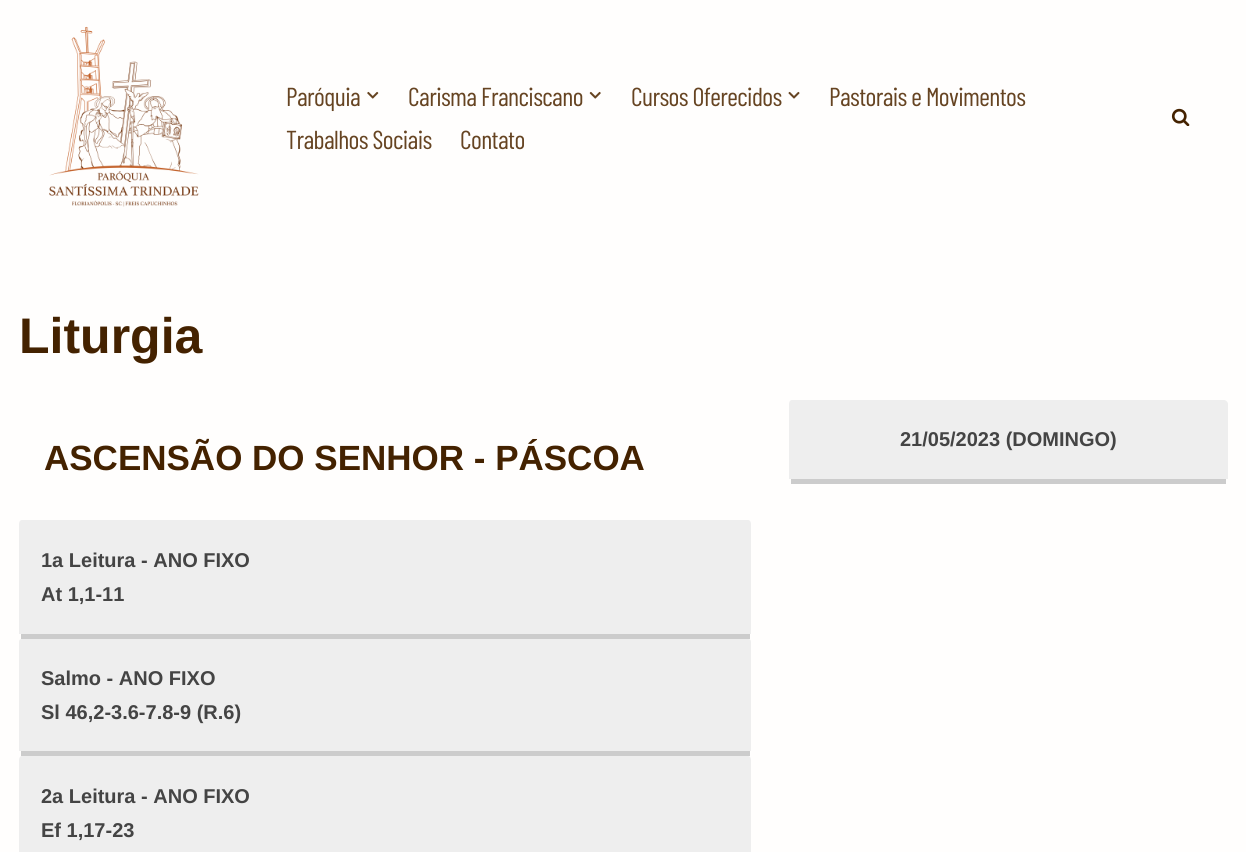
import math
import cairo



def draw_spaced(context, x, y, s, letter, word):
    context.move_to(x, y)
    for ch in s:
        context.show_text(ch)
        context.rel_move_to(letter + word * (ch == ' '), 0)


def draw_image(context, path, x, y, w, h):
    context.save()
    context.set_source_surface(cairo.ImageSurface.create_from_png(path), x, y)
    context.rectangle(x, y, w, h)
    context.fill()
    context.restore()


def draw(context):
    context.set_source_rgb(1, 254 / 255, 253 / 255)
    context.paint()
    draw_image(context, "images/1.png", 49, 26, 150, 181)
    draw_image(context, "images/2.png", 367, 91, 12, 8)
    draw_image(context, "images/3.png", 589, 91, 12, 8)
    draw_image(context, "images/4.png", 788, 91, 12, 8)
    draw_image(context, "images/5.png", 1171, 108, 19, 18)
    context.set_source_rgb(238 / 255, 238 / 255, 238 / 255)
    context.new_path()
    context.move_to(22, 520)
    context.line_to(748, 520)
    context.curve_to(750, 520, 751, 522, 751, 524)
    context.line_to(751, 634)
    context.line_to(19, 634)
    context.line_to(19, 524)
    context.curve_to(19, 522, 20, 520, 22, 520)
    context.close_path()
    context.fill()
    context.set_source_rgb(204 / 255, 204 / 255, 204 / 255)
    context.rectangle(21, 634, 729, 5)
    context.fill()
    context.set_source_rgb(238 / 255, 238 / 255, 238 / 255)
    context.new_path()
    context.move_to(22, 639)
    context.line_to(748, 639)
    context.curve_to(750, 639, 751, 640, 751, 642)
    context.line_to(751, 751)
    context.line_to(19, 751)
    context.line_to(19, 642)
    context.curve_to(19, 640, 20, 639, 22, 639)
    context.close_path()
    context.fill()
    context.set_source_rgb(204 / 255, 204 / 255, 204 / 255)
    context.rectangle(21, 751, 729, 5)
    context.fill()
    context.set_source_rgb(238 / 255, 238 / 255, 238 / 255)
    context.new_path()
    context.move_to(22, 756)
    context.line_to(748, 756)
    context.curve_to(750, 756, 751, 758, 751, 760)
    context.line_to(751, 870)
    context.line_to(19, 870)
    context.line_to(19, 760)
    context.curve_to(19, 758, 20, 756, 22, 756)
    context.close_path()
    context.fill()
    context.new_path()
    context.move_to(792, 400)
    context.line_to(1224, 400)
    context.curve_to(1226, 400, 1228, 402, 1228, 404)
    context.line_to(1228, 479)
    context.line_to(789, 479)
    context.line_to(789, 404)
    context.curve_to(789, 402, 790, 400, 792, 400)
    context.close_path()
    context.fill()
    context.set_source_rgb(204 / 255, 204 / 255, 204 / 255)
    context.rectangle(791, 479, 435, 5)
    context.fill()
    context.select_font_face("Barlow Condensed")
    context.set_font_size(26)
    context.set_source_rgb(102 / 255, 68 / 255, 34 / 255)
    draw_spaced(context, 286, 106, "Paróquia", -0.6, 0)
    draw_spaced(context, 408, 106, "Carisma Franciscano", -0.6, 0)
    draw_spaced(context, 631, 106, "Cursos Oferecidos", -0.6, 0)
    draw_spaced(context, 829, 106, "Pastorais e Movimentos", -0.6, 0)
    draw_spaced(context, 286, 149, "Trabalhos Sociais", -0.6, 0)
    draw_spaced(context, 460, 149, "Contato", -0.6, 0)
    context.select_font_face("Liberation Sans", cairo.FontSlant.NORMAL, cairo.FontWeight.BOLD)
    context.set_font_size(50)
    context.set_source_rgb(68 / 255, 34 / 255, 0)
    context.move_to(19, 353)
    context.show_text("Liturgia")
    context.set_font_size(35)
    context.move_to(44, 470)
    context.show_text("ASCENSÃO DO SENHOR - PÁSCOA")
    context.set_font_size(20)
    context.set_source_rgb(68 / 255, 68 / 255, 68 / 255)
    context.move_to(41, 567)
    context.show_text("1a Leitura - ANO FIXO")
    context.move_to(41, 601)
    context.show_text("At 1,1-11")
    context.move_to(41, 685)
    context.show_text("Salmo - ANO FIXO")
    context.move_to(41, 719)
    context.show_text("Sl 46,2-3.6-7.8-9 (R.6)")
    context.move_to(41, 803)
    context.show_text("2a Leitura - ANO FIXO")
    context.move_to(41, 837)
    context.show_text("Ef 1,17-23")
    context.move_to(900, 446)
    context.show_text("21/05/2023 (DOMINGO)")


surface = cairo.ImageSurface(cairo.Format.RGB24, 1246, 852)
context = cairo.Context(surface)
options = cairo.FontOptions()
options.set_hint_metrics(cairo.HintMetrics.OFF)
options.set_hint_style(cairo.HintStyle.NONE)
context.set_font_options(options)
context.set_miter_limit(4)
draw(context)
surface.write_to_png("out.png")
